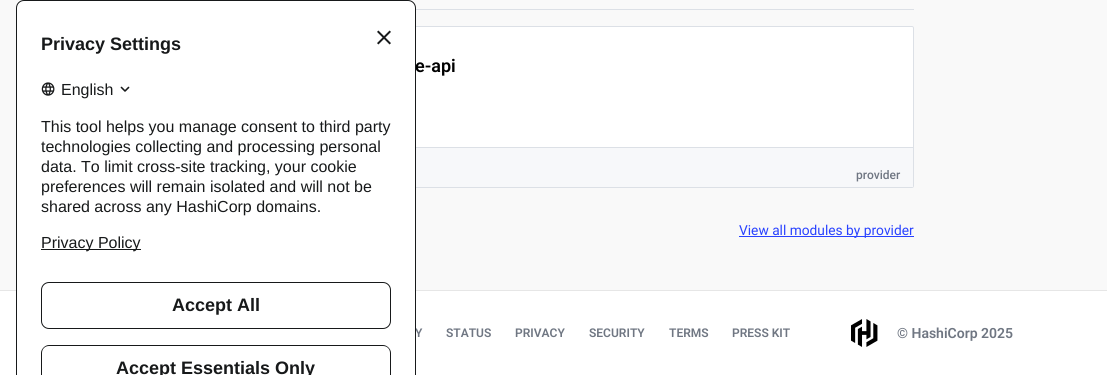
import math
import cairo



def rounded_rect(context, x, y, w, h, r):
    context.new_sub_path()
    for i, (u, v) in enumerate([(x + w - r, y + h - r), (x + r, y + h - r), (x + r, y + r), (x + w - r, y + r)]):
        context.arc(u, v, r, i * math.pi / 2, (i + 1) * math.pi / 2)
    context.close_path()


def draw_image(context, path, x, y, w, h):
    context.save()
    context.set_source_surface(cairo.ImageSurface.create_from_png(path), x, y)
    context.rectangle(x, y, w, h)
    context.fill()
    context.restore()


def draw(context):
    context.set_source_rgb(1, 1, 1)
    context.paint()
    context.set_source_rgb(249 / 255, 249 / 255, 249 / 255)
    context.rectangle(0, 0, 1107, 290)
    context.fill()
    context.set_source_rgb(220 / 255, 224 / 255, 230 / 255)
    context.rectangle(416, 9, 498, 1)
    context.fill()
    context.set_source_rgb(1, 1, 1)
    rounded_rect(context, 194.5, 26.5, 719, 161, 1.5)
    context.fill_preserve()
    context.set_source_rgb(220 / 255, 224 / 255, 230 / 255)
    context.set_line_width(1)
    context.stroke()
    context.set_source_rgb(247 / 255, 248 / 255, 250 / 255)
    context.rectangle(416, 148, 497, 39)
    context.fill()
    context.set_source_rgb(220 / 255, 224 / 255, 230 / 255)
    context.rectangle(416, 147, 497, 1)
    context.fill()
    context.set_source_rgb(41 / 255, 66 / 255, 1)
    context.rectangle(739, 236, 175, 1)
    context.fill()
    context.set_source_rgb(230 / 255, 230 / 255, 230 / 255)
    context.rectangle(0, 290, 1107, 1)
    context.fill()
    draw_image(context, "images/4.png", 851, 319, 27, 28)
    context.select_font_face("Roboto SemiBold")
    context.set_font_size(18)
    context.set_source_rgb(0, 0, 0)
    context.move_to(415, 72)
    context.show_text("e-api")
    context.select_font_face("Roboto Medium")
    context.set_font_size(12)
    context.set_source_rgb(111 / 255, 118 / 255, 130 / 255)
    context.move_to(856, 179)
    context.show_text("provider")
    context.select_font_face("Roboto")
    context.set_font_size(13.75)
    context.set_source_rgb(41 / 255, 66 / 255, 1)
    context.move_to(739, 235)
    context.show_text("View all modules by provider")
    context.select_font_face("Roboto SemiBold")
    context.set_font_size(12)
    context.set_source_rgb(111 / 255, 118 / 255, 130 / 255)
    context.move_to(415, 337)
    context.show_text("Y")
    context.set_source_rgb(1, 1, 1)
    rounded_rect(context, 16.5, 0.5, 399, 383, 7.5)
    context.fill_preserve()
    context.set_source_rgb(23 / 255, 25 / 255, 26 / 255)
    context.stroke()
    context.rectangle(41, 249, 100, 1)
    context.fill()
    context.select_font_face("Liberation Sans")
    context.set_font_size(16)
    context.move_to(41, 248)
    context.show_text("Privacy Policy")
    draw_image(context, "images/3.png", 120, 86, 10, 6)
    draw_image(context, "images/2.png", 41, 82, 14, 14)
    draw_image(context, "images/1.png", 377, 30, 14, 15)
    context.new_path()
    context.move_to(49, 345)
    context.curve_to(45, 345, 41, 349, 41, 353)
    context.line_to(41, 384)
    context.line_to(42, 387)
    context.line_to(43, 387)
    context.line_to(42, 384)
    context.line_to(42, 353)
    context.curve_to(42, 349, 45, 346, 49, 346)
    context.line_to(383, 346)
    context.curve_to(387, 346, 390, 349, 390, 353)
    context.line_to(390, 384)
    context.line_to(389, 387)
    context.line_to(390, 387)
    context.line_to(391, 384)
    context.line_to(391, 353)
    context.curve_to(391, 349, 387, 345, 383, 345)
    context.close_path()
    context.fill()
    context.select_font_face("Liberation Sans", cairo.FontSlant.NORMAL, cairo.FontWeight.BOLD)
    context.set_font_size(18)
    context.move_to(116, 374)
    context.show_text("Accept Essentials Only")
    rounded_rect(context, 41.5, 282.5, 349, 46, 7.5)
    context.stroke()
    context.move_to(172, 311)
    context.show_text("Accept All")
    context.select_font_face("Liberation Sans")
    context.set_font_size(16)
    context.move_to(41, 212)
    context.show_text("shared across any HashiCorp domains.")
    context.move_to(41, 192)
    context.show_text("preferences will remain isolated and will not be")
    context.move_to(41, 172)
    context.show_text("data. To limit cross-site tracking, your cookie")
    context.move_to(41, 152)
    context.show_text("technologies collecting and processing personal")
    context.move_to(41, 132)
    context.show_text("This tool helps you manage consent to third party")
    context.move_to(61, 95)
    context.show_text("English")
    context.select_font_face("Liberation Sans", cairo.FontSlant.NORMAL, cairo.FontWeight.BOLD)
    context.set_font_size(18)
    context.move_to(41, 50)
    context.show_text("Privacy Settings")
    context.select_font_face("Roboto SemiBold")
    context.set_font_size(12)
    context.set_source_rgb(111 / 255, 118 / 255, 130 / 255)
    context.move_to(446, 337)
    context.show_text("STATUS")
    context.move_to(515, 337)
    context.show_text("PRIVACY")
    context.move_to(589, 337)
    context.show_text("SECURITY")
    context.move_to(669, 337)
    context.show_text("TERMS")
    context.move_to(732, 337)
    context.show_text("PRESS KIT")
    context.set_font_size(14)
    context.move_to(897, 338)
    context.show_text("© HashiCorp 2025")


surface = cairo.ImageSurface(cairo.Format.RGB24, 1107, 375)
context = cairo.Context(surface)
options = cairo.FontOptions()
options.set_hint_metrics(cairo.HintMetrics.OFF)
options.set_hint_style(cairo.HintStyle.NONE)
context.set_font_options(options)
context.set_miter_limit(4)
draw(context)
surface.write_to_png("out.png")
